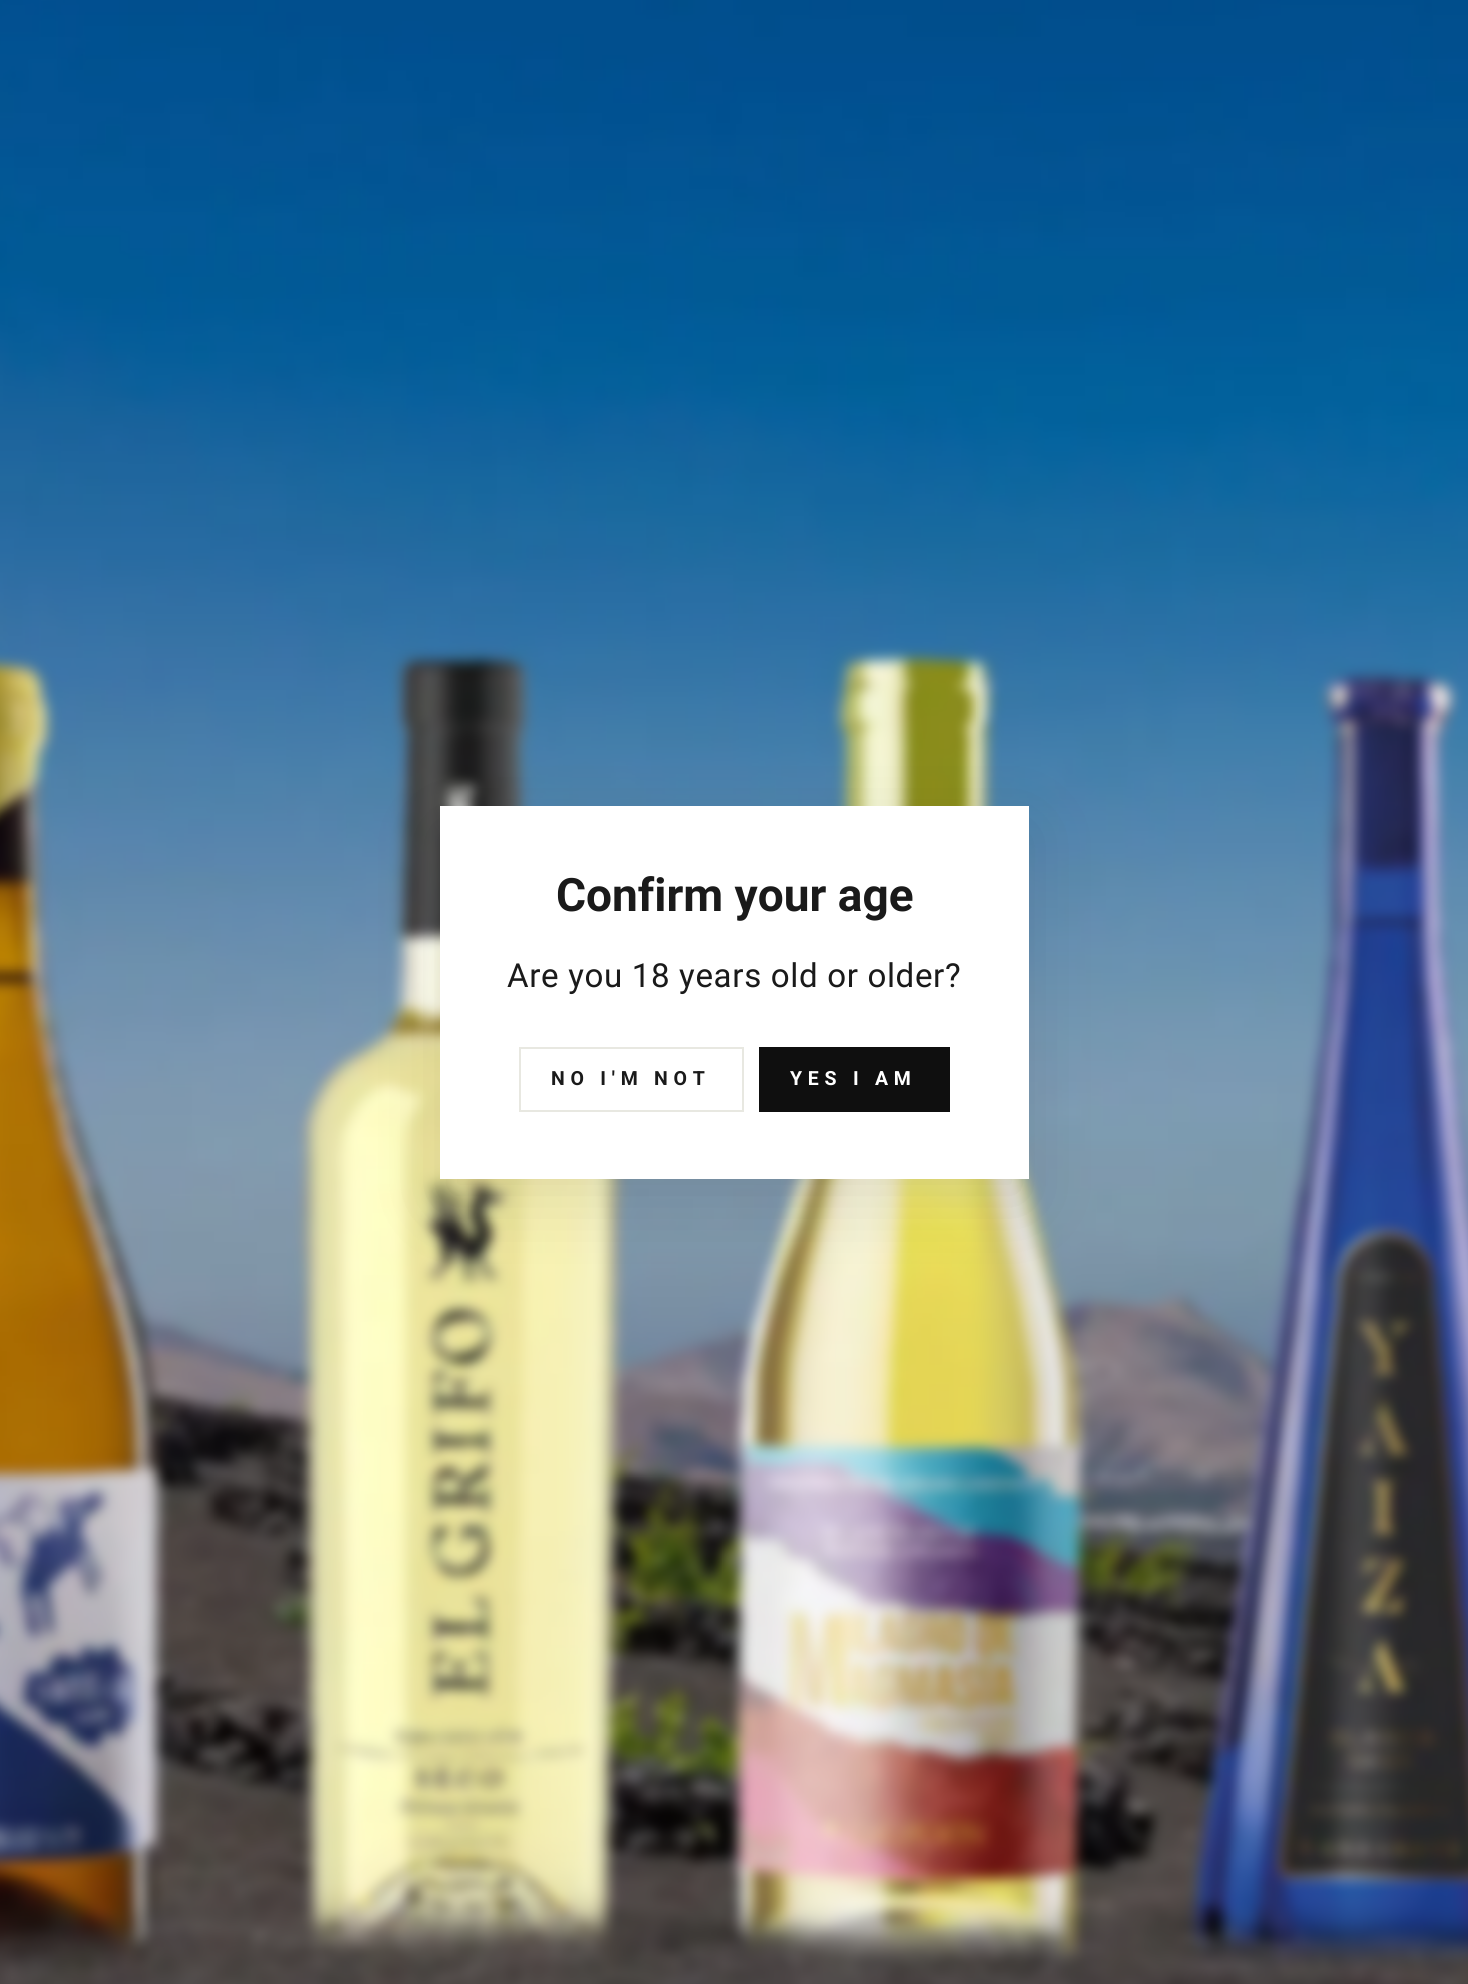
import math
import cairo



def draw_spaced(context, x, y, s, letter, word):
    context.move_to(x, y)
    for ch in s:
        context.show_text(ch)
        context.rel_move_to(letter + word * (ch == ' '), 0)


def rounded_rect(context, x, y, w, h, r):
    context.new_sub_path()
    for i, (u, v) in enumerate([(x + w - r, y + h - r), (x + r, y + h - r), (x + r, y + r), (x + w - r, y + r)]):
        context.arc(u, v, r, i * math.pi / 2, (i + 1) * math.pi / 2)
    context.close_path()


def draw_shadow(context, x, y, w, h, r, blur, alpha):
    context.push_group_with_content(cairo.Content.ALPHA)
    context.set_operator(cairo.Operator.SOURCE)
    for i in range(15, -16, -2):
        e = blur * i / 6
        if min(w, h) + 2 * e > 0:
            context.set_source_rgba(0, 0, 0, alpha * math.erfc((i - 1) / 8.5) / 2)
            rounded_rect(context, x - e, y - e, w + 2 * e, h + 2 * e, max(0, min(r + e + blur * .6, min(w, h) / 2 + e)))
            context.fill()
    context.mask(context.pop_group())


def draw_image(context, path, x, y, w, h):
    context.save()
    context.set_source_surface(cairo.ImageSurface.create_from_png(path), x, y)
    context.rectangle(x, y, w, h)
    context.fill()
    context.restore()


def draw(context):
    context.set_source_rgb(1, 1, 1)
    context.paint()
    draw_image(context, "images/1.png", 0, 0, 1468, 1984)
    context.set_source_rgb(0, 0, 0)
    draw_shadow(context, 440, 828, 589, 374, 0, 34, 0.1)
    context.set_source_rgb(1, 1, 1)
    context.rectangle(440, 806, 589, 373)
    context.fill()
    context.rectangle(520, 1048, 223, 63)
    context.set_source_rgb(232 / 255, 232 / 255, 225 / 255)
    context.stroke()
    context.set_source_rgb(15 / 255, 15 / 255, 15 / 255)
    context.rectangle(759, 1047, 191, 65)
    context.fill()
    context.select_font_face("Roboto", cairo.FontSlant.NORMAL, cairo.FontWeight.BOLD)
    context.set_font_size(46)
    context.set_source_rgb(26 / 255, 26 / 255, 26 / 255)
    context.move_to(556, 911)
    context.show_text("Confirm your age")
    context.select_font_face("Roboto")
    context.set_font_size(33.1)
    draw_spaced(context, 507, 987, "Are you 18 years old or older?", 0.65, 0)
    context.select_font_face("Roboto", cairo.FontSlant.NORMAL, cairo.FontWeight.BOLD)
    context.set_font_size(19.5)
    draw_spaced(context, 551, 1085, "NO I'M NOT", 5.75, 0)
    context.set_source_rgb(1, 1, 1)
    draw_spaced(context, 790, 1085, "YES I AM", 5.75, 0)


surface = cairo.ImageSurface(cairo.Format.RGB24, 1468, 1984)
context = cairo.Context(surface)
options = cairo.FontOptions()
options.set_hint_metrics(cairo.HintMetrics.OFF)
options.set_hint_style(cairo.HintStyle.NONE)
context.set_font_options(options)
context.set_miter_limit(4)
draw(context)
surface.write_to_png("out.png")
